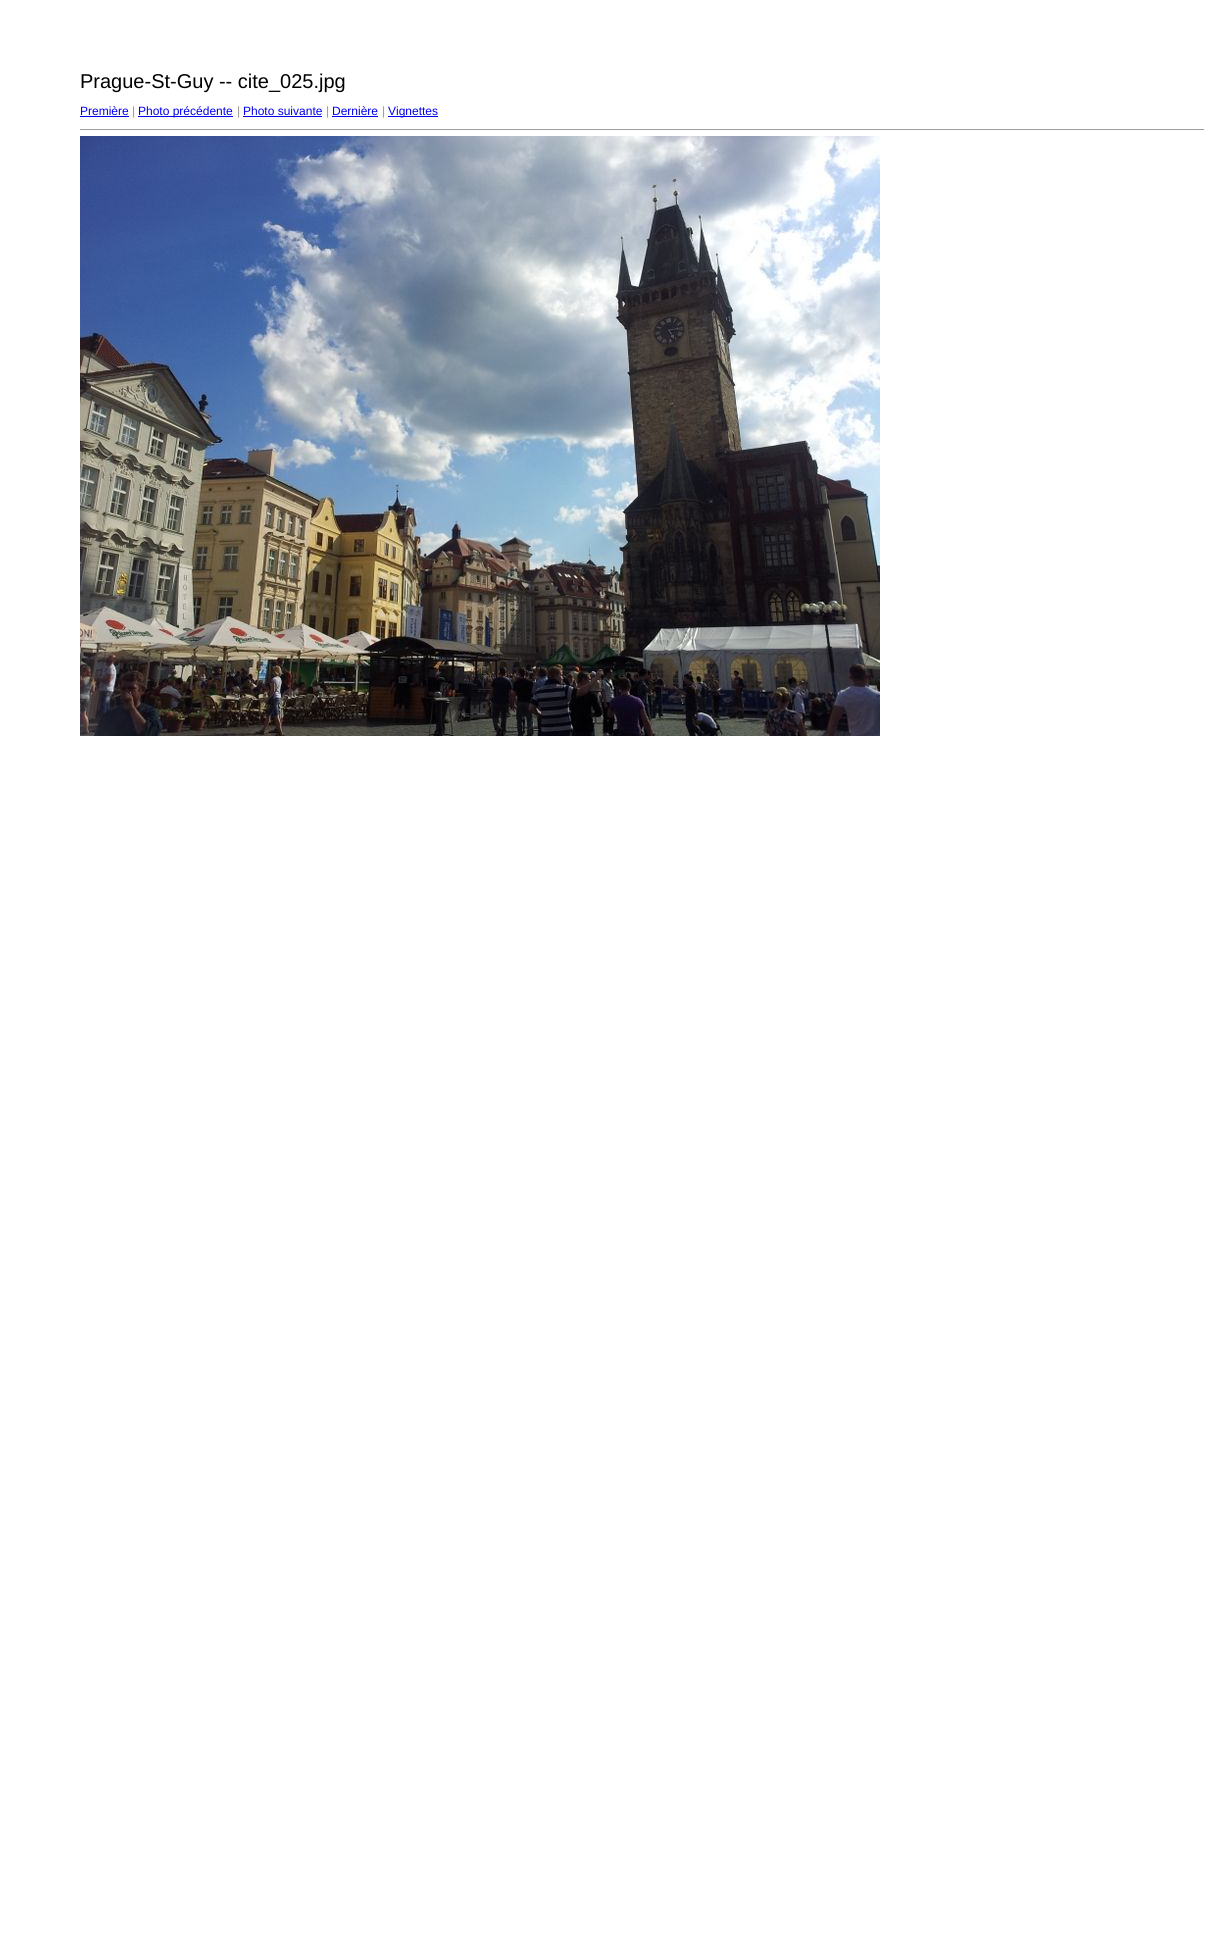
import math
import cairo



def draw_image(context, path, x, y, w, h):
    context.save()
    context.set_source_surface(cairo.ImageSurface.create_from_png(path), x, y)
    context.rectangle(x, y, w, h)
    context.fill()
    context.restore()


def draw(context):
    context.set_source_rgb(1, 1, 1)
    context.paint()
    context.set_source_rgb(0, 0, 238 / 255)
    context.rectangle(80, 116, 49, 1)
    context.fill()
    context.rectangle(138, 116, 95, 1)
    context.fill()
    context.rectangle(243, 116, 79, 1)
    context.fill()
    context.rectangle(332, 116, 46, 1)
    context.fill()
    context.rectangle(388, 116, 50, 1)
    context.fill()
    context.set_source_rgb(159 / 255, 159 / 255, 159 / 255)
    context.rectangle(80, 129, 1125, 1)
    context.fill()
    context.set_source_rgb(238 / 255, 238 / 255, 238 / 255)
    context.rectangle(1204, 129, 1, 1)
    context.fill()
    draw_image(context, "images/1.png", 80, 136, 800, 600)
    context.select_font_face("Liberation Sans")
    context.set_font_size(20)
    context.set_source_rgb(0, 0, 0)
    context.move_to(80, 88)
    context.show_text("Prague-St-Guy -- cite_025.jpg")
    context.set_font_size(12)
    context.set_source_rgb(0, 0, 238 / 255)
    context.move_to(80, 115)
    context.show_text("Première")
    context.set_source_rgb(151 / 255, 151 / 255, 151 / 255)
    context.move_to(132, 115)
    context.show_text("|")
    context.set_source_rgb(0, 0, 238 / 255)
    context.move_to(138, 115)
    context.show_text("Photo précédente")
    context.set_source_rgb(151 / 255, 151 / 255, 151 / 255)
    context.move_to(237, 115)
    context.show_text("|")
    context.set_source_rgb(0, 0, 238 / 255)
    context.move_to(243, 115)
    context.show_text("Photo suivante")
    context.set_source_rgb(151 / 255, 151 / 255, 151 / 255)
    context.move_to(326, 115)
    context.show_text("|")
    context.set_source_rgb(0, 0, 238 / 255)
    context.move_to(332, 115)
    context.show_text("Dernière")
    context.set_source_rgb(151 / 255, 151 / 255, 151 / 255)
    context.move_to(382, 115)
    context.show_text("|")
    context.set_source_rgb(0, 0, 238 / 255)
    context.move_to(388, 115)
    context.show_text("Vignettes")


surface = cairo.ImageSurface(cairo.Format.RGB24, 1213, 1954)
context = cairo.Context(surface)
options = cairo.FontOptions()
options.set_hint_metrics(cairo.HintMetrics.OFF)
options.set_hint_style(cairo.HintStyle.NONE)
context.set_font_options(options)
context.set_miter_limit(4)
draw(context)
surface.write_to_png("out.png")
